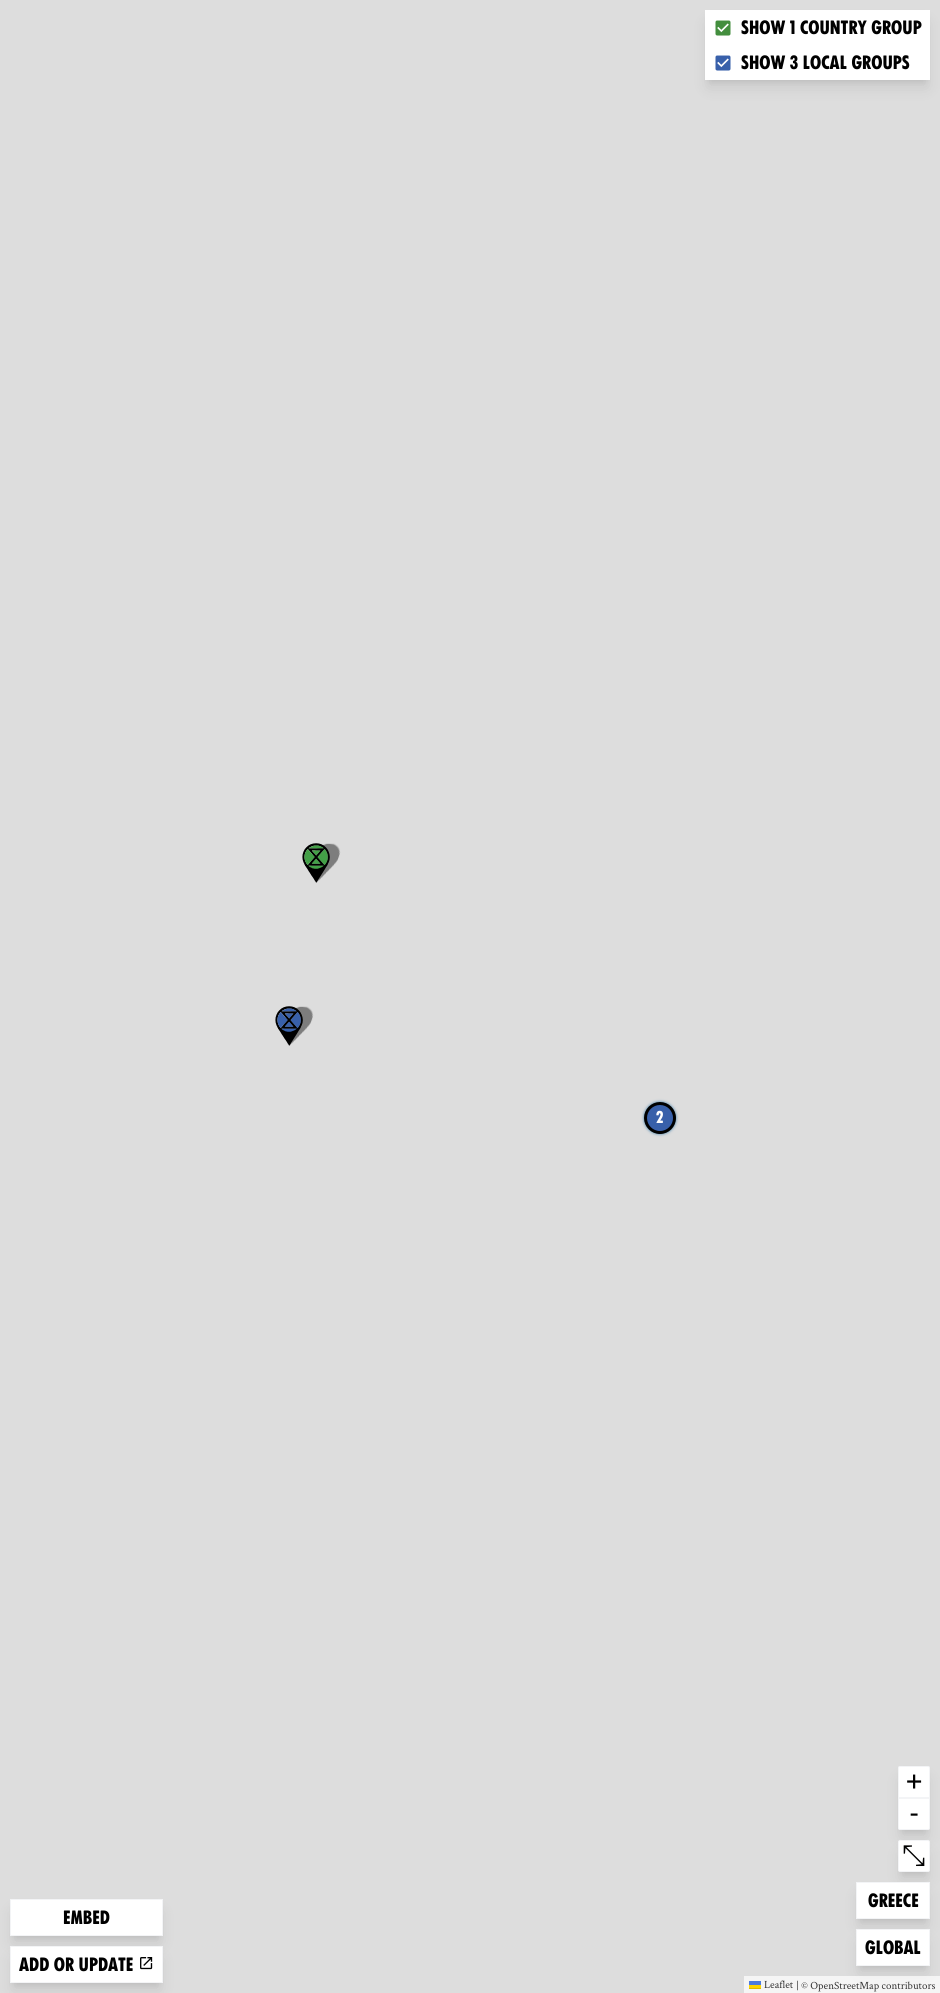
import math
import cairo



def rounded_rect(context, x, y, w, h, r):
    context.new_sub_path()
    for i, (u, v) in enumerate([(x + w - r, y + h - r), (x + r, y + h - r), (x + r, y + r), (x + w - r, y + r)]):
        context.arc(u, v, r, i * math.pi / 2, (i + 1) * math.pi / 2)
    context.close_path()


def draw_shadow(context, x, y, w, h, r, blur, alpha):
    context.push_group_with_content(cairo.Content.ALPHA)
    context.set_operator(cairo.Operator.SOURCE)
    for i in range(15, -16, -2):
        e = blur * i / 6
        if min(w, h) + 2 * e > 0:
            context.set_source_rgba(0, 0, 0, alpha * math.erfc((i - 1) / 8.5) / 2)
            rounded_rect(context, x - e, y - e, w + 2 * e, h + 2 * e, max(0, min(r + e + blur * .6, min(w, h) / 2 + e)))
            context.fill()
    context.mask(context.pop_group())


def draw_image(context, path, x, y, w, h):
    context.save()
    context.set_source_surface(cairo.ImageSurface.create_from_png(path), x, y)
    context.rectangle(x, y, w, h)
    context.fill()
    context.restore()


def draw(context):
    context.set_source_rgb(221 / 255, 221 / 255, 221 / 255)
    context.paint()
    context.set_source_rgb(0, 0, 0)
    draw_shadow(context, 709, 18, 217, 62, 0, 3, 0.1)
    draw_shadow(context, 708, 23, 219, 64, 0, 7.5, 0.1)
    context.set_source_rgb(1, 1, 1)
    context.rectangle(705, 10, 225, 70)
    context.fill()
    draw_image(context, "images/1.png", 715, 20, 16, 16)
    draw_image(context, "images/2.png", 715, 55, 16, 16)
    context.set_source_rgb(0, 0, 0)
    draw_shadow(context, 14, 1907, 145, 29, 0, 3, 0.1)
    draw_shadow(context, 13, 1912, 147, 31, 0, 7.5, 0.1)
    context.set_source_rgb(1, 1, 1)
    context.rectangle(10.5, 1899.5, 152, 36)
    context.fill_preserve()
    context.set_source_rgb(243 / 255, 244 / 255, 246 / 255)
    context.set_line_width(1)
    context.stroke()
    context.set_source_rgb(0, 0, 0)
    draw_shadow(context, 14, 1954, 145, 29, 0, 3, 0.1)
    draw_shadow(context, 13, 1959, 147, 31, 0, 7.5, 0.1)
    context.set_source_rgb(1, 1, 1)
    context.rectangle(10.5, 1946.5, 152, 36)
    context.fill_preserve()
    context.set_source_rgb(243 / 255, 244 / 255, 246 / 255)
    context.stroke()
    draw_image(context, "images/3.png", 140, 1957, 13, 13)
    context.set_source_rgb(0, 0, 0)
    draw_shadow(context, 902, 1774, 24, 56, 0, 3, 0.1)
    draw_shadow(context, 901, 1779, 26, 58, 0, 7.5, 0.1)
    context.set_source_rgb(1, 1, 1)
    context.new_path()
    context.move_to(900, 1766.5)
    context.line_to(928, 1766.5)
    context.curve_to(929, 1766.5, 929.5, 1767, 929.5, 1768)
    context.line_to(929.5, 1797.5)
    context.line_to(898.5, 1797.5)
    context.line_to(898.5, 1768)
    context.curve_to(898.5, 1767, 899, 1766.5, 900, 1766.5)
    context.close_path()
    context.fill_preserve()
    context.set_source_rgb(243 / 255, 244 / 255, 246 / 255)
    context.stroke()
    context.set_source_rgb(1, 1, 1)
    context.new_path()
    context.move_to(898.5, 1798.5)
    context.line_to(929.5, 1798.5)
    context.line_to(929.5, 1828)
    context.curve_to(929.5, 1829, 929, 1829.5, 928, 1829.5)
    context.line_to(900, 1829.5)
    context.curve_to(899, 1829.5, 898.5, 1829, 898.5, 1828)
    context.close_path()
    context.fill_preserve()
    context.set_source_rgb(243 / 255, 244 / 255, 246 / 255)
    context.stroke()
    context.set_source_rgb(0, 0, 0)
    draw_shadow(context, 902, 1848, 24, 24, 0, 3, 0.1)
    draw_shadow(context, 901, 1853, 26, 26, 0, 7.5, 0.1)
    context.set_source_rgb(1, 1, 1)
    rounded_rect(context, 898.5, 1840.5, 31, 31, 1.5)
    context.fill_preserve()
    context.set_source_rgb(243 / 255, 244 / 255, 246 / 255)
    context.stroke()
    context.set_source_rgb(0, 0, 0)
    draw_shadow(context, 860, 1890, 66, 29, 0, 3, 0.1)
    draw_shadow(context, 859, 1895, 68, 31, 0, 7.5, 0.1)
    context.set_source_rgb(1, 1, 1)
    context.rectangle(856.5, 1882.5, 73, 36)
    context.fill_preserve()
    context.set_source_rgb(243 / 255, 244 / 255, 246 / 255)
    context.stroke()
    context.set_source_rgb(0, 0, 0)
    draw_shadow(context, 860, 1937, 66, 29, 0, 3, 0.1)
    draw_shadow(context, 859, 1942, 68, 31, 0, 7.5, 0.1)
    context.set_source_rgb(1, 1, 1)
    context.rectangle(856.5, 1929.5, 73, 36)
    context.fill_preserve()
    context.set_source_rgb(243 / 255, 244 / 255, 246 / 255)
    context.stroke()
    context.set_source_rgba(1, 1, 1, 0.7)
    context.rectangle(744, 1976, 196, 17)
    context.fill()
    context.set_source_rgb(76 / 255, 123 / 255, 225 / 255)
    context.rectangle(749, 1981, 12, 4)
    context.fill()
    context.set_source_rgb(1, 213 / 255, 0)
    context.rectangle(749, 1985, 12, 3)
    context.fill()
    context.set_source_rgb(224 / 255, 188 / 255, 0)
    context.rectangle(749, 1988, 12, 1)
    context.fill()
    draw_image(context, "images/4.png", 302, 843, 39, 40)
    draw_image(context, "images/5.png", 275, 1006, 39, 40)
    context.set_source_rgb(63 / 255, 127 / 255, 172 / 255)
    draw_shadow(context, 644, 1102, 32, 32, 16, 1.5, 1)
    context.set_source_rgb(56 / 255, 96 / 255, 170 / 255)
    context.arc(660, 1118, 14.5, 0, 2 * math.pi)
    context.fill_preserve()
    context.set_source_rgb(0, 0, 0)
    context.set_line_width(3)
    context.stroke()
    context.select_font_face("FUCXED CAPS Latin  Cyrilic")
    context.set_font_size(18)
    context.move_to(741, 34)
    context.show_text("Show 1 country group")
    context.move_to(741, 69)
    context.show_text("Show 3 local groups")
    context.move_to(63, 1924)
    context.show_text("Embed")
    context.move_to(19, 1971)
    context.show_text("Add or update")
    context.select_font_face("DejaVu Sans Mono")
    context.set_font_size(27)
    context.move_to(906, 1790)
    context.show_text("+")
    context.move_to(906, 1822)
    context.show_text("-")
    context.select_font_face("FreeSerif")
    context.set_font_size(29)
    context.move_to(902, 1865)
    context.show_text("⤡")
    context.select_font_face("FUCXED CAPS Latin  Cyrilic")
    context.set_font_size(18)
    context.move_to(868, 1907)
    context.show_text("Greece")
    context.move_to(865, 1954)
    context.show_text("Global")
    context.select_font_face("Crimson Text")
    context.set_font_size(11)
    context.set_source_rgb(51 / 255, 51 / 255, 51 / 255)
    context.move_to(764, 1988)
    context.show_text("Leaflet")
    context.move_to(796, 1989)
    context.show_text("| © OpenStreetMap contributors")
    context.select_font_face("FUCXED CAPS Latin  Cyrilic")
    context.set_font_size(16)
    context.set_source_rgb(1, 1, 1)
    context.move_to(656, 1123)
    context.show_text("2")


surface = cairo.ImageSurface(cairo.Format.RGB24, 940, 1993)
context = cairo.Context(surface)
options = cairo.FontOptions()
options.set_hint_metrics(cairo.HintMetrics.OFF)
options.set_hint_style(cairo.HintStyle.NONE)
context.set_font_options(options)
context.set_miter_limit(4)
draw(context)
surface.write_to_png("out.png")
